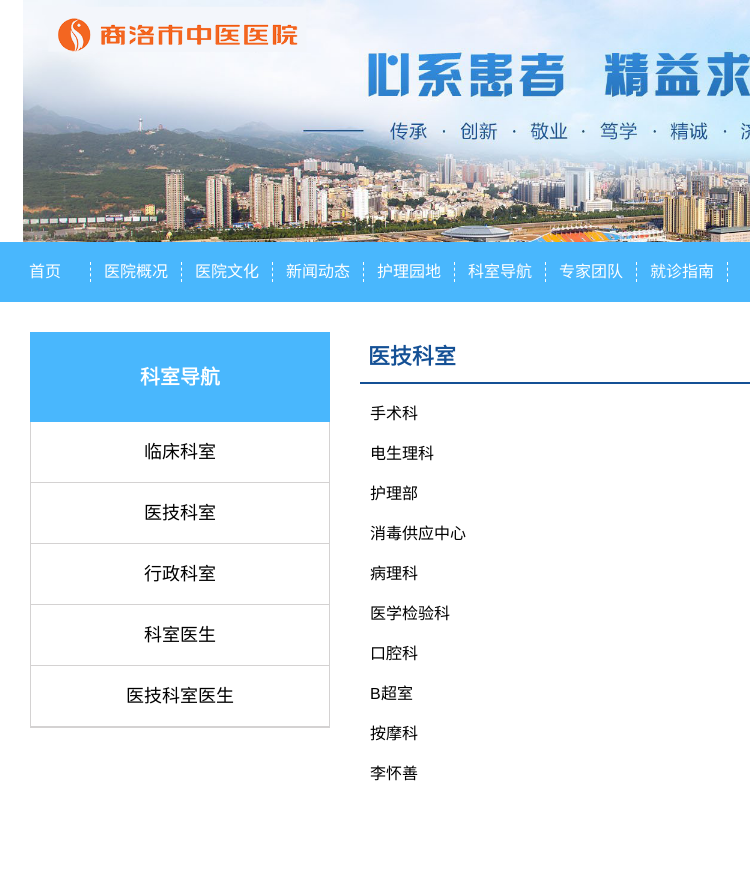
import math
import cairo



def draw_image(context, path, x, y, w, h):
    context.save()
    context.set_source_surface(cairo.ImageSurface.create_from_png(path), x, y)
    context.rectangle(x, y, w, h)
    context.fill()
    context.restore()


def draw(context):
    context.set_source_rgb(1, 1, 1)
    context.paint()
    draw_image(context, "images/1.png", 23, 0, 727, 242)
    context.set_source_rgb(73 / 255, 183 / 255, 253 / 255)
    context.rectangle(0, 242, 750, 60)
    context.fill()
    context.new_path()
    context.move_to(90.5, 262)
    context.line_to(90.5, 282)
    context.set_source_rgb(1, 1, 1)
    context.set_line_width(1)
    context.set_dash([3, 2.67])
    context.stroke()
    context.new_path()
    context.move_to(181.5, 262)
    context.line_to(181.5, 282)
    context.stroke()
    context.new_path()
    context.move_to(272.5, 262)
    context.line_to(272.5, 282)
    context.stroke()
    context.new_path()
    context.move_to(363.5, 262)
    context.line_to(363.5, 282)
    context.stroke()
    context.new_path()
    context.move_to(454.5, 262)
    context.line_to(454.5, 282)
    context.stroke()
    context.new_path()
    context.move_to(545.5, 262)
    context.line_to(545.5, 282)
    context.stroke()
    context.new_path()
    context.move_to(636.5, 262)
    context.line_to(636.5, 282)
    context.stroke()
    context.new_path()
    context.move_to(727.5, 262)
    context.line_to(727.5, 282)
    context.stroke()
    context.set_source_rgb(73 / 255, 183 / 255, 253 / 255)
    context.rectangle(30, 332, 300, 90)
    context.fill()
    context.set_source_rgb(212 / 255, 210 / 255, 210 / 255)
    context.rectangle(329, 422, 1, 306)
    context.fill()
    context.rectangle(30, 727, 300, 1)
    context.fill()
    context.rectangle(30, 422, 1, 306)
    context.fill()
    context.rectangle(31, 482, 298, 1)
    context.fill()
    context.rectangle(31, 543, 298, 1)
    context.fill()
    context.rectangle(31, 604, 298, 1)
    context.fill()
    context.rectangle(31, 665, 298, 1)
    context.fill()
    context.rectangle(31, 726, 298, 1)
    context.fill()
    context.set_source_rgb(20 / 255, 80 / 255, 149 / 255)
    context.rectangle(360, 382, 390, 2)
    context.fill()
    context.select_font_face("Noto Sans CJK SC")
    context.set_font_size(16)
    context.set_source_rgb(1, 1, 1)
    context.move_to(29, 277)
    context.show_text("首页")
    context.move_to(104, 277)
    context.show_text("医院概况")
    context.move_to(195, 277)
    context.show_text("医院文化")
    context.move_to(286, 277)
    context.show_text("新闻动态")
    context.move_to(377, 277)
    context.show_text("护理园地")
    context.move_to(468, 277)
    context.show_text("科室导航")
    context.move_to(559, 277)
    context.show_text("专家团队")
    context.move_to(650, 277)
    context.show_text("就诊指南")
    context.select_font_face("Noto Sans CJK SC", cairo.FontSlant.NORMAL, cairo.FontWeight.BOLD)
    context.set_font_size(20)
    context.move_to(140, 384)
    context.show_text("科室导航")
    context.select_font_face("Noto Sans CJK SC")
    context.set_font_size(18)
    context.set_source_rgb(0, 0, 0)
    context.move_to(144, 458)
    context.show_text("临床科室")
    context.move_to(144, 519)
    context.show_text("医技科室")
    context.move_to(144, 580)
    context.show_text("行政科室")
    context.move_to(144, 641)
    context.show_text("科室医生")
    context.move_to(126, 702)
    context.show_text("医技科室医生")
    context.select_font_face("Noto Sans CJK SC", cairo.FontSlant.NORMAL, cairo.FontWeight.BOLD)
    context.set_font_size(22)
    context.set_source_rgb(20 / 255, 80 / 255, 149 / 255)
    context.move_to(368, 364)
    context.show_text("医技科室")
    context.select_font_face("Noto Sans CJK SC")
    context.set_font_size(16)
    context.set_source_rgb(0, 0, 0)
    context.move_to(370, 419)
    context.show_text("手术科")
    context.move_to(370, 459)
    context.show_text("电生理科")
    context.move_to(370, 499)
    context.show_text("护理部")
    context.move_to(370, 539)
    context.show_text("消毒供应中心")
    context.move_to(370, 579)
    context.show_text("病理科")
    context.move_to(370, 619)
    context.show_text("医学检验科")
    context.move_to(370, 659)
    context.show_text("口腔科")
    context.select_font_face("Liberation Sans")
    context.move_to(370, 699)
    context.show_text("B")
    context.select_font_face("Noto Sans CJK SC")
    context.move_to(381, 699)
    context.show_text("超室")
    context.move_to(370, 739)
    context.show_text("按摩科")
    context.move_to(370, 779)
    context.show_text("李怀善")


surface = cairo.ImageSurface(cairo.Format.RGB24, 750, 894)
context = cairo.Context(surface)
options = cairo.FontOptions()
options.set_hint_metrics(cairo.HintMetrics.OFF)
options.set_hint_style(cairo.HintStyle.NONE)
context.set_font_options(options)
context.set_miter_limit(4)
draw(context)
surface.write_to_png("out.png")
